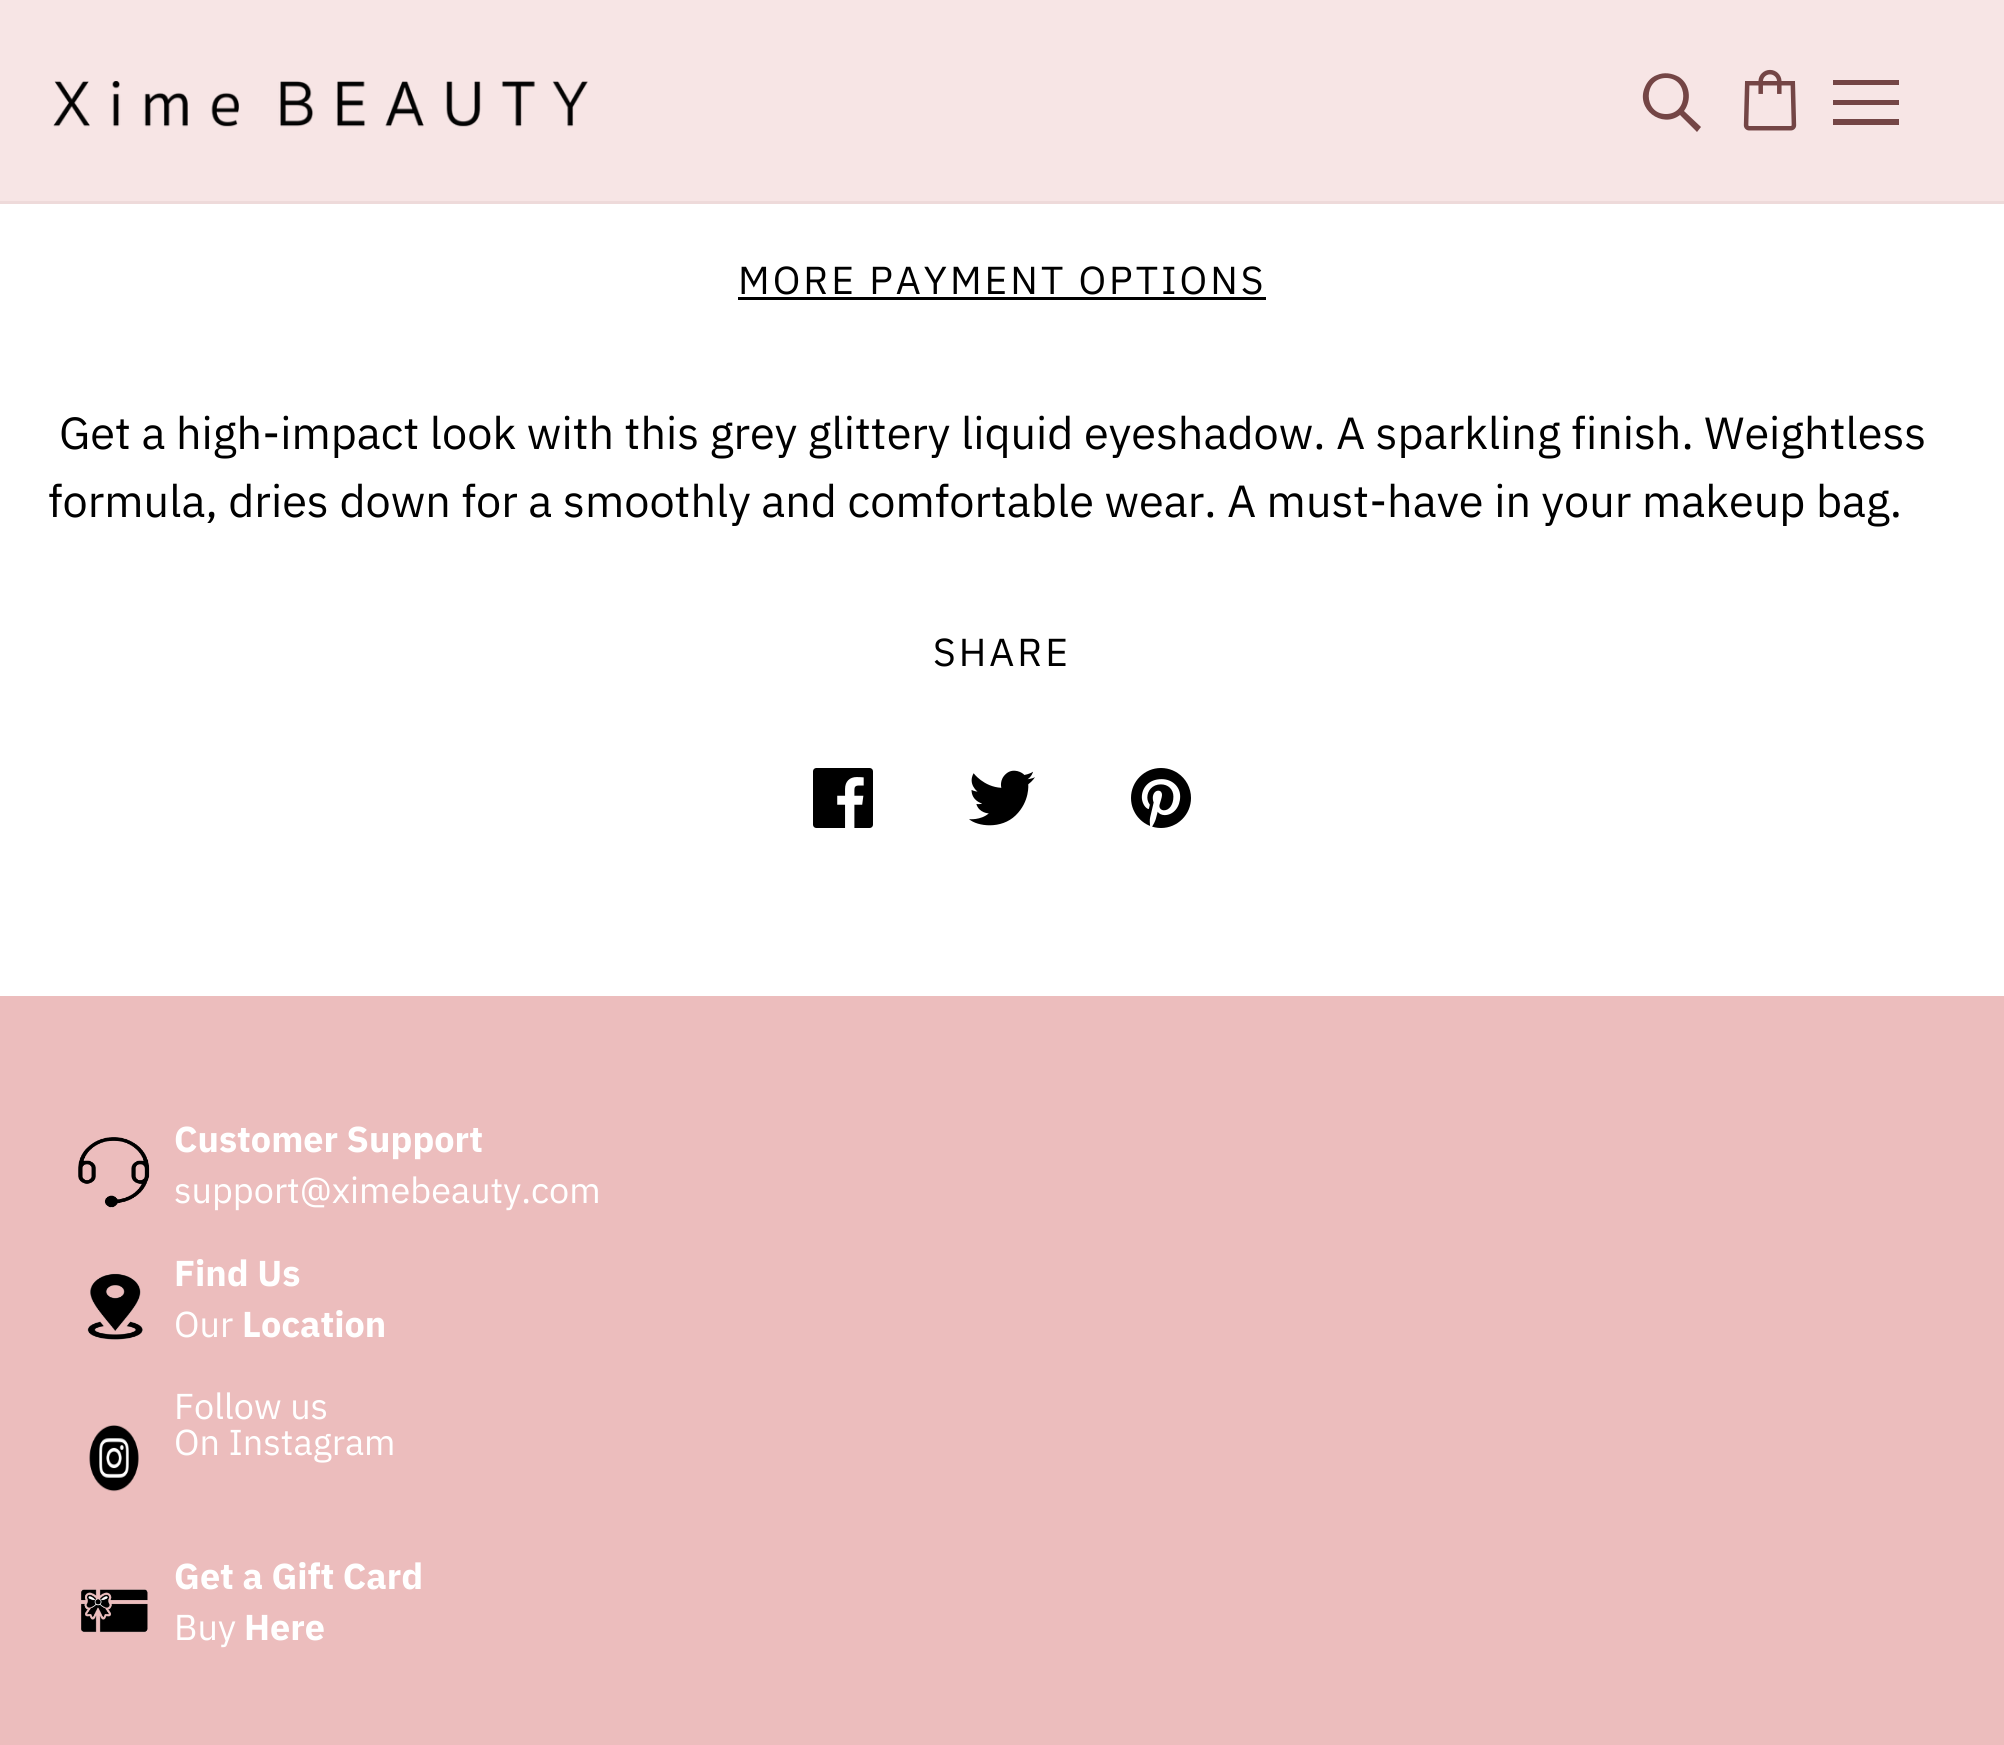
import math
import cairo



def draw_spaced(context, x, y, s, letter, word):
    context.move_to(x, y)
    for ch in s:
        context.show_text(ch)
        context.rel_move_to(letter + word * (ch == ' '), 0)


def draw_image(context, path, x, y, w, h):
    context.save()
    context.set_source_surface(cairo.ImageSurface.create_from_png(path), x, y)
    context.rectangle(x, y, w, h)
    context.fill()
    context.restore()


def draw(context):
    context.set_source_rgb(1, 1, 1)
    context.paint()
    context.set_source_rgb(247 / 255, 229 / 255, 229 / 255)
    context.rectangle(0, 0, 2004, 201)
    context.fill()
    context.set_source_rgb(238 / 255, 218 / 255, 218 / 255)
    context.rectangle(0, 201, 2004, 3)
    context.fill()
    draw_image(context, "images/1.png", 53, 81, 535, 46)
    context.set_source_rgb(116 / 255, 69 / 255, 69 / 255)
    context.new_path()
    context.move_to(1684, 111)
    context.line_to(1701, 127)
    context.line_to(1697, 132)
    context.line_to(1680, 115)
    context.curve_to(1662, 129, 1635, 109, 1645, 87)
    context.curve_to(1647, 82, 1651, 77, 1657, 75)
    context.curve_to(1664, 72, 1672, 73, 1679, 77)
    context.curve_to(1690, 84, 1692, 100, 1684, 111)
    context.close_path()
    context.move_to(1666, 114)
    context.curve_to(1689, 114, 1689, 78, 1666, 78)
    context.curve_to(1643, 78, 1643, 114, 1666, 114)
    context.close_path()
    context.fill()
    draw_image(context, "images/2.png", 1743, 69, 54, 62)
    context.new_path()
    context.move_to(1833, 85)
    context.line_to(1833, 80)
    context.line_to(1899, 80)
    context.line_to(1899, 85)
    context.close_path()
    context.move_to(1833, 105)
    context.line_to(1833, 100)
    context.line_to(1899, 100)
    context.line_to(1899, 105)
    context.close_path()
    context.move_to(1833, 125)
    context.line_to(1833, 119)
    context.line_to(1899, 119)
    context.line_to(1899, 125)
    context.close_path()
    context.fill()
    context.set_source_rgb(0, 0, 0)
    context.rectangle(738, 297, 528, 3)
    context.fill()
    draw_image(context, "images/3.png", 813, 768, 60, 60)
    draw_image(context, "images/4.png", 969, 770, 66, 56)
    draw_image(context, "images/5.png", 1131, 768, 60, 60)
    context.set_source_rgb(236 / 255, 189 / 255, 189 / 255)
    context.rectangle(0, 996, 2004, 749)
    context.fill()
    draw_image(context, "images/6.png", 78, 1137, 72, 71)
    draw_image(context, "images/7.png", 87, 1273, 56, 67)
    draw_image(context, "images/8.png", 89, 1425, 50, 67)
    draw_image(context, "images/9.png", 81, 1589, 67, 44)
    context.select_font_face("IBM Plex Sans")
    context.set_font_size(39)
    context.set_source_rgb(0, 0, 0)
    draw_spaced(context, 738, 294, "MORE PAYMENT OPTIONS", 3, 0)
    context.set_font_size(45)
    context.move_to(59, 449)
    context.show_text("Get a high-impact look with this grey glittery liquid eyeshadow. A sparkling finish. Weightless")
    context.move_to(48, 517)
    context.show_text("formula, dries down for a smoothly and comfortable wear. A must-have in your makeup bag.")
    context.set_font_size(39)
    draw_spaced(context, 933, 666, "SHARE", 3, 0)
    context.select_font_face("IBM Plex Sans", cairo.FontSlant.NORMAL, cairo.FontWeight.BOLD)
    context.set_font_size(36)
    context.set_source_rgb(1, 1, 1)
    context.move_to(174, 1152)
    context.show_text("Customer Support")
    context.select_font_face("IBM Plex Sans")
    context.move_to(174, 1203)
    context.show_text("support@ximebeauty.com")
    context.select_font_face("IBM Plex Sans", cairo.FontSlant.NORMAL, cairo.FontWeight.BOLD)
    context.move_to(174, 1286)
    context.show_text("Find Us")
    context.select_font_face("IBM Plex Sans")
    context.move_to(174, 1337)
    context.show_text("Our")
    context.select_font_face("IBM Plex Sans", cairo.FontSlant.NORMAL, cairo.FontWeight.BOLD)
    context.move_to(242, 1337)
    context.show_text("Location")
    context.select_font_face("IBM Plex Sans")
    context.move_to(174, 1419)
    context.show_text("Follow us")
    context.move_to(174, 1455)
    context.show_text("On Instagram")
    context.select_font_face("IBM Plex Sans", cairo.FontSlant.NORMAL, cairo.FontWeight.BOLD)
    context.move_to(174, 1589)
    context.show_text("Get a Gift Card")
    context.select_font_face("IBM Plex Sans")
    context.move_to(174, 1640)
    context.show_text("Buy")
    context.select_font_face("IBM Plex Sans", cairo.FontSlant.NORMAL, cairo.FontWeight.BOLD)
    context.move_to(244, 1640)
    context.show_text("Here")


surface = cairo.ImageSurface(cairo.Format.RGB24, 2004, 1745)
context = cairo.Context(surface)
options = cairo.FontOptions()
options.set_hint_metrics(cairo.HintMetrics.OFF)
options.set_hint_style(cairo.HintStyle.NONE)
context.set_font_options(options)
context.set_miter_limit(4)
draw(context)
surface.write_to_png("out.png")
